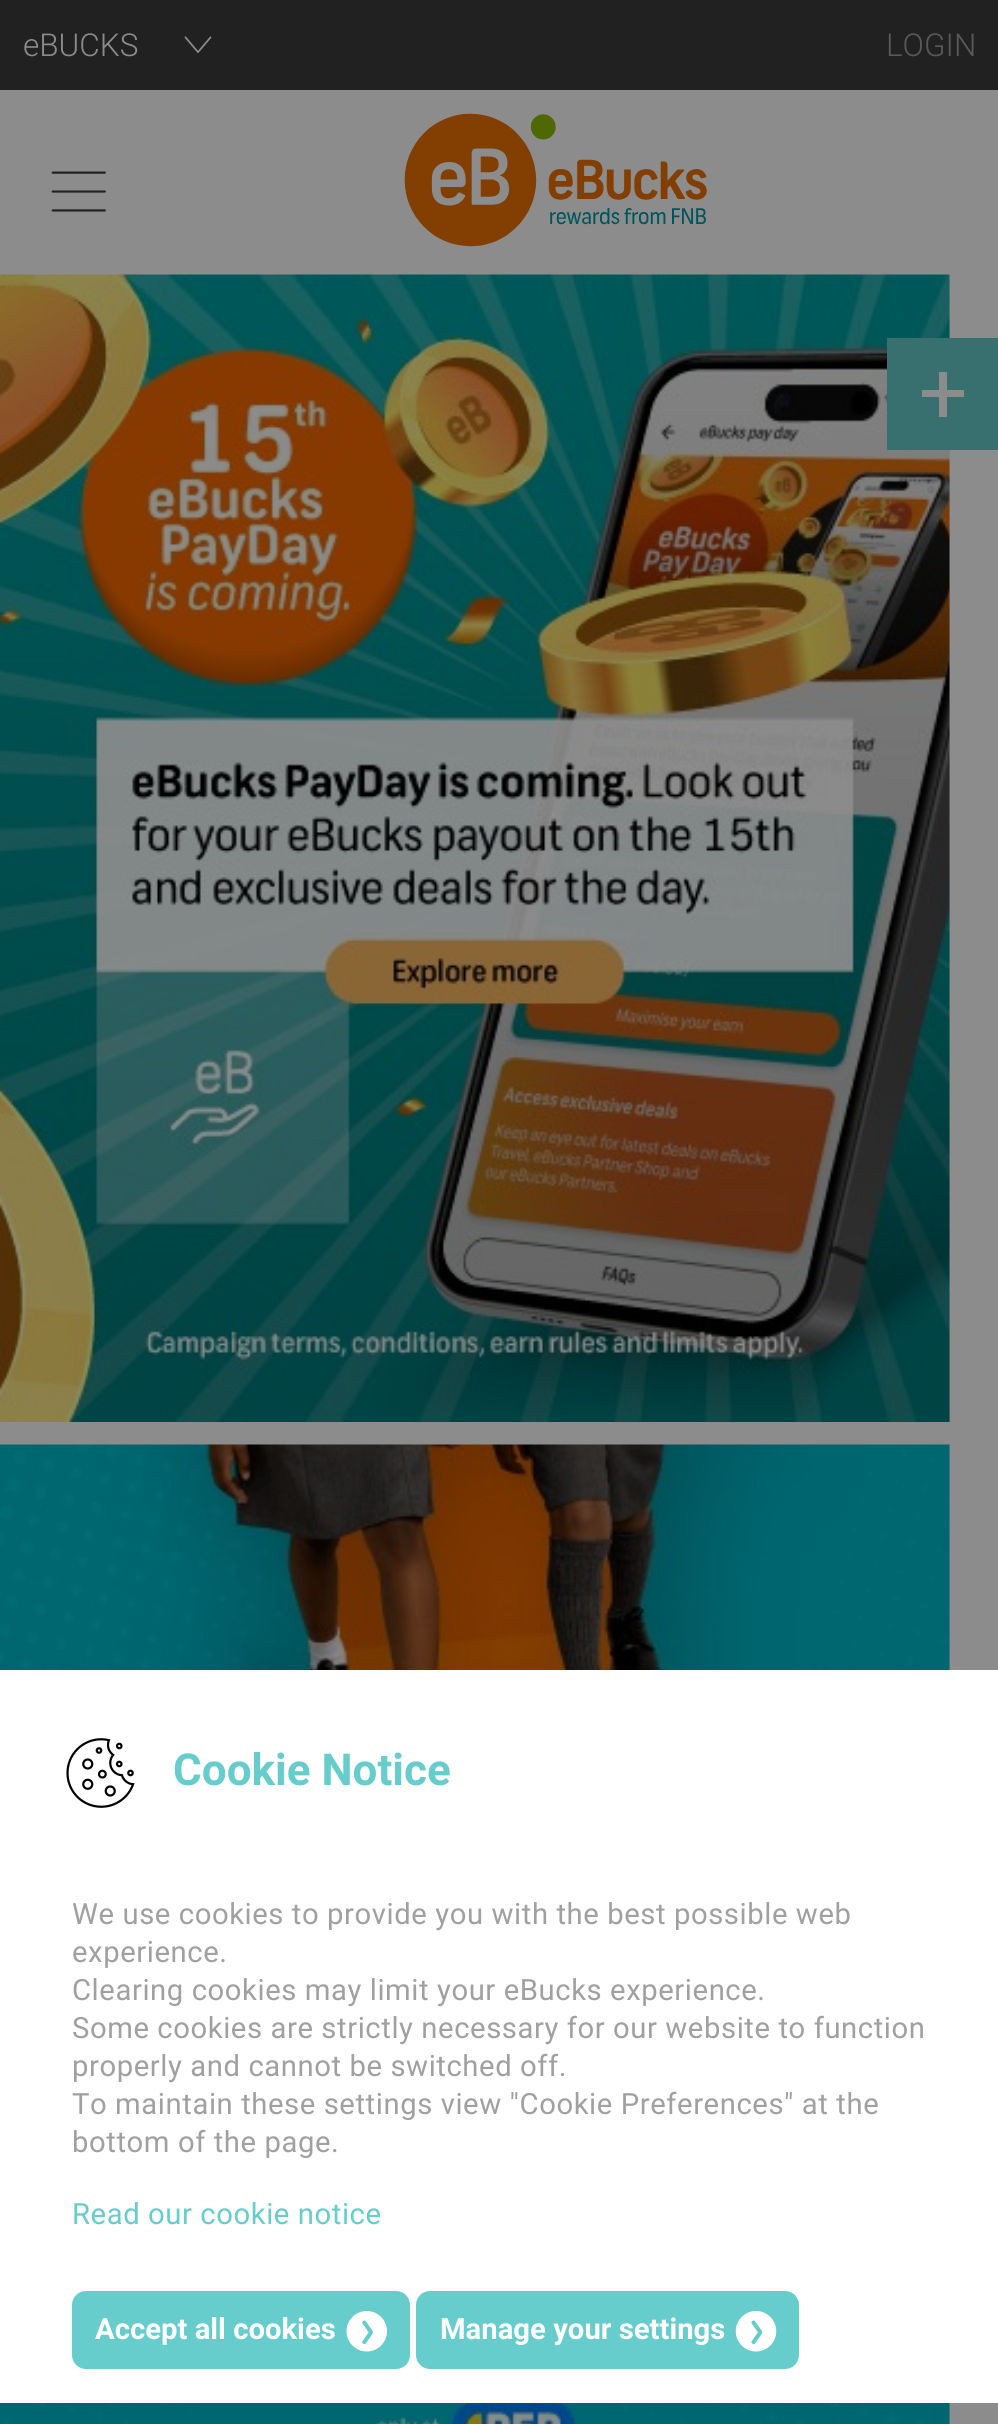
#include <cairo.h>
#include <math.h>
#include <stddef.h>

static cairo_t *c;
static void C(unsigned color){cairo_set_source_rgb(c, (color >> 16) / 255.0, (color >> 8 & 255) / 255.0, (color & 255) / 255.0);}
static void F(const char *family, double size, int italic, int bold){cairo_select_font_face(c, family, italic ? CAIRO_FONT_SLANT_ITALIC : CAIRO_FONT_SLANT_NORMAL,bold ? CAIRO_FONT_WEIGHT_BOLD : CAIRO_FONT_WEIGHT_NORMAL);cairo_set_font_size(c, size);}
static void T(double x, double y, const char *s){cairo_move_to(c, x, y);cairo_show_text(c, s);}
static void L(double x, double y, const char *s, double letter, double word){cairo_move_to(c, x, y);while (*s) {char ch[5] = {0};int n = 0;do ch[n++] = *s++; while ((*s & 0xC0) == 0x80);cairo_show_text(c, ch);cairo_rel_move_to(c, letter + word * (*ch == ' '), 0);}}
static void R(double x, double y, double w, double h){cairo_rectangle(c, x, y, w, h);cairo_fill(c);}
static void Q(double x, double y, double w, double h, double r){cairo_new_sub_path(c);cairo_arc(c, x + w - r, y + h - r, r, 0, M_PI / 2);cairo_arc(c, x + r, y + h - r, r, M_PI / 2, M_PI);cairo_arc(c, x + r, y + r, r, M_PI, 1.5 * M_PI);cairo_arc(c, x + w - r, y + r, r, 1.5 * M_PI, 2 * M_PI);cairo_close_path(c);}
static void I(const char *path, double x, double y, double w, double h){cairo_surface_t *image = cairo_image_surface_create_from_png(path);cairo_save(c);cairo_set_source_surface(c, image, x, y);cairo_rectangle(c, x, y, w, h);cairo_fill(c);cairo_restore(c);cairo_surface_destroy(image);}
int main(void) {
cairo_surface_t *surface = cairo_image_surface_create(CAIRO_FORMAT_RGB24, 998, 2424);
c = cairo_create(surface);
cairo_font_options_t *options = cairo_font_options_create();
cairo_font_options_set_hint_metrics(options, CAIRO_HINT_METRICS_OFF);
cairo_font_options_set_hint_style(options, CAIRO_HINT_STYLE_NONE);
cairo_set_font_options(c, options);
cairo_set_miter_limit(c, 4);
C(0x8c8c8c);
cairo_paint(c);
C(0x212121);
R(0,0,998,90);
F("Roboto Light",31.5,0,0);
C(0x8c8c8c);
T(23,56,"eBUCKS");
I("1.png",184,36,28,17);
C(0x585858);
T(886,56,"LOGIN");
I("2.png",51,171,55,41);
I("3.png",404,113,303,134);
C(0x858585);
R(949,275,1,1147);
I("4.png",0,274,950,1148);
R(949,1445,1,979);
I("5.png",0,1444,950,980);
C(0x387070);
R(887,338,111,112);
C(0x8c8c8c);
cairo_new_path(c);
cairo_move_to(c,947,390);
cairo_line_to(c,964,390);
cairo_line_to(c,964,397);
cairo_line_to(c,947,397);
cairo_line_to(c,947,417);
cairo_line_to(c,939,417);
cairo_line_to(c,939,397);
cairo_line_to(c,922,397);
cairo_line_to(c,922,390);
cairo_line_to(c,939,390);
cairo_line_to(c,939,372);
cairo_line_to(c,947,372);
cairo_close_path(c);
cairo_fill(c);
C(0xffffff);
R(0,1670,998,733);
I("6.png",66,1738,69,70);
F("Roboto",44,0,1);
C(0x66cccc);
T(173,1785,"Cookie Notice");
F("Roboto",29.25,0,0);
C(0xa0a0a0);
L(72,1924,"We use cookies to provide you with the best possible web",.58,0);
L(72,1962,"experience.",.58,0);
L(72,2000,"Clearing cookies may limit your eBucks experience.",.58,0);
L(72,2038,"Some cookies are strictly necessary for our website to function",.58,0);
L(72,2076,"properly and cannot be switched off.",.58,0);
L(72,2114,"To maintain these settings view \"Cookie Preferences\" at the",.58,0);
L(72,2152,"bottom of the page.",.58,0);
C(0x66cccc);
L(72,2224,"Read our cookie notice",.58,0);
Q(72,2291,338,78,14);
cairo_fill(c);
F("Roboto",29.25,0,1);
C(0xffffff);
T(95,2339,"Accept all cookies");
I("7.png",346,2311,41,41);
C(0x66cccc);
Q(416,2291,383,78,14);
cairo_fill(c);
C(0xffffff);
T(440,2339,"Manage your settings");
I("8.png",735,2311,42,41);
cairo_surface_write_to_png(surface, "o.png");
cairo_font_options_destroy(options);
cairo_destroy(c);
cairo_surface_destroy(surface);
return 0;
}
